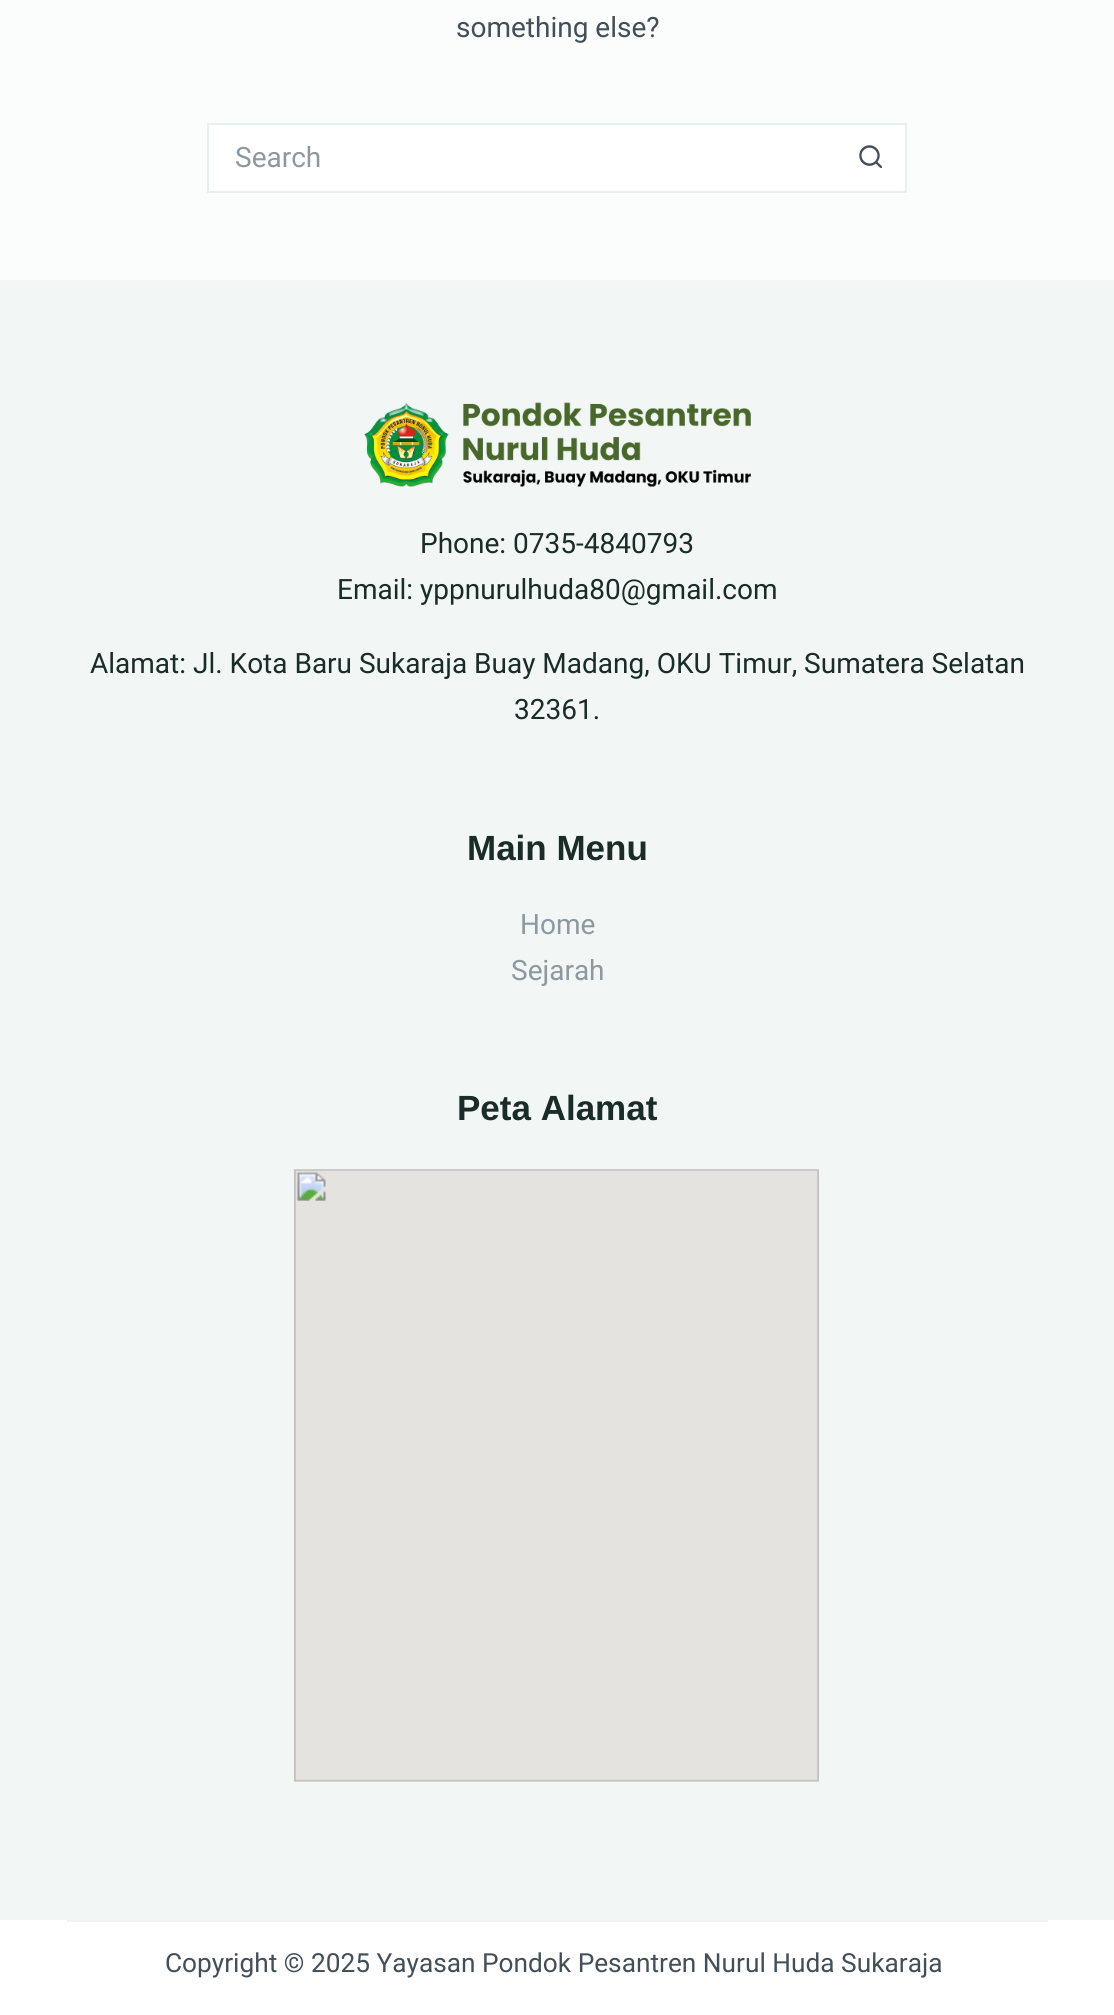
#include <cairo.h>
#include <math.h>
#include <stddef.h>

static cairo_t *c;
static void C(unsigned color){cairo_set_source_rgb(c, (color >> 16) / 255.0, (color >> 8 & 255) / 255.0, (color & 255) / 255.0);}
static void F(const char *family, double size, int italic, int bold){cairo_select_font_face(c, family, italic ? CAIRO_FONT_SLANT_ITALIC : CAIRO_FONT_SLANT_NORMAL,bold ? CAIRO_FONT_WEIGHT_BOLD : CAIRO_FONT_WEIGHT_NORMAL);cairo_set_font_size(c, size);}
static void T(double x, double y, const char *s){cairo_move_to(c, x, y);cairo_show_text(c, s);}
static void R(double x, double y, double w, double h){cairo_rectangle(c, x, y, w, h);cairo_fill(c);}
static void I(const char *path, double x, double y, double w, double h){cairo_surface_t *image = cairo_image_surface_create_from_png(path);cairo_save(c);cairo_set_source_surface(c, image, x, y);cairo_rectangle(c, x, y, w, h);cairo_fill(c);cairo_restore(c);cairo_surface_destroy(image);}
int main(void) {
cairo_surface_t *surface = cairo_image_surface_create(CAIRO_FORMAT_RGB24, 1114, 2015);
c = cairo_create(surface);
cairo_font_options_t *options = cairo_font_options_create();
cairo_font_options_set_hint_metrics(options, CAIRO_HINT_METRICS_OFF);
cairo_font_options_set_hint_style(options, CAIRO_HINT_STYLE_NONE);
cairo_set_font_options(c, options);
cairo_set_miter_limit(c, 4);
C(0xfbfcfc);
cairo_paint(c);
F("Roboto",28,0,0);
C(0x434f58);
T(456,37,"something else?");
C(0xffffff);
R(209,125,696,66);
C(0xe6f0ee);
R(207,123,700,2);
R(207,191,630,2);
R(207,123,2,70);
C(0x8e98a0);
T(235,167,"Search");
C(0xe6f0ee);
R(905,123,2,70);
R(837,191,70,2);
I("1.png",859,145,23,23);
C(0xffffff);
R(0,1920,1114,95);
C(0xf2f7f6);
R(0,280,1114,1640);
I("2.png",364,402,387,85);
C(0x192c27);
T(420,553,"Phone: 0735-4840793");
T(337,599,"Email: yppnurulhuda80@gmail.com");
T(90,673,"Alamat: Jl. Kota Baru Sukaraja Buay Madang, OKU Timur, Sumatera Selatan");
T(514,719,"32361.");
F("Liberation Sans",35,0,1);
T(467,860,"Main Menu");
F("Roboto",28,0,0);
C(0x8e98a0);
T(520,934,"Home");
T(511,980,"Sejarah");
F("Liberation Sans",35,0,1);
C(0x192c27);
T(457,1120,"Peta Alamat");
I("3.png",294,1169,525,613);
C(0xf2f2f2);
R(67,1920,981,2);
F("Roboto",26.25,0,0);
C(0x434f58);
T(165,1972,"Copyright © 2025 Yayasan Pondok Pesantren Nurul Huda Sukaraja");
cairo_surface_write_to_png(surface, "o.png");
cairo_font_options_destroy(options);
cairo_destroy(c);
cairo_surface_destroy(surface);
return 0;
}
